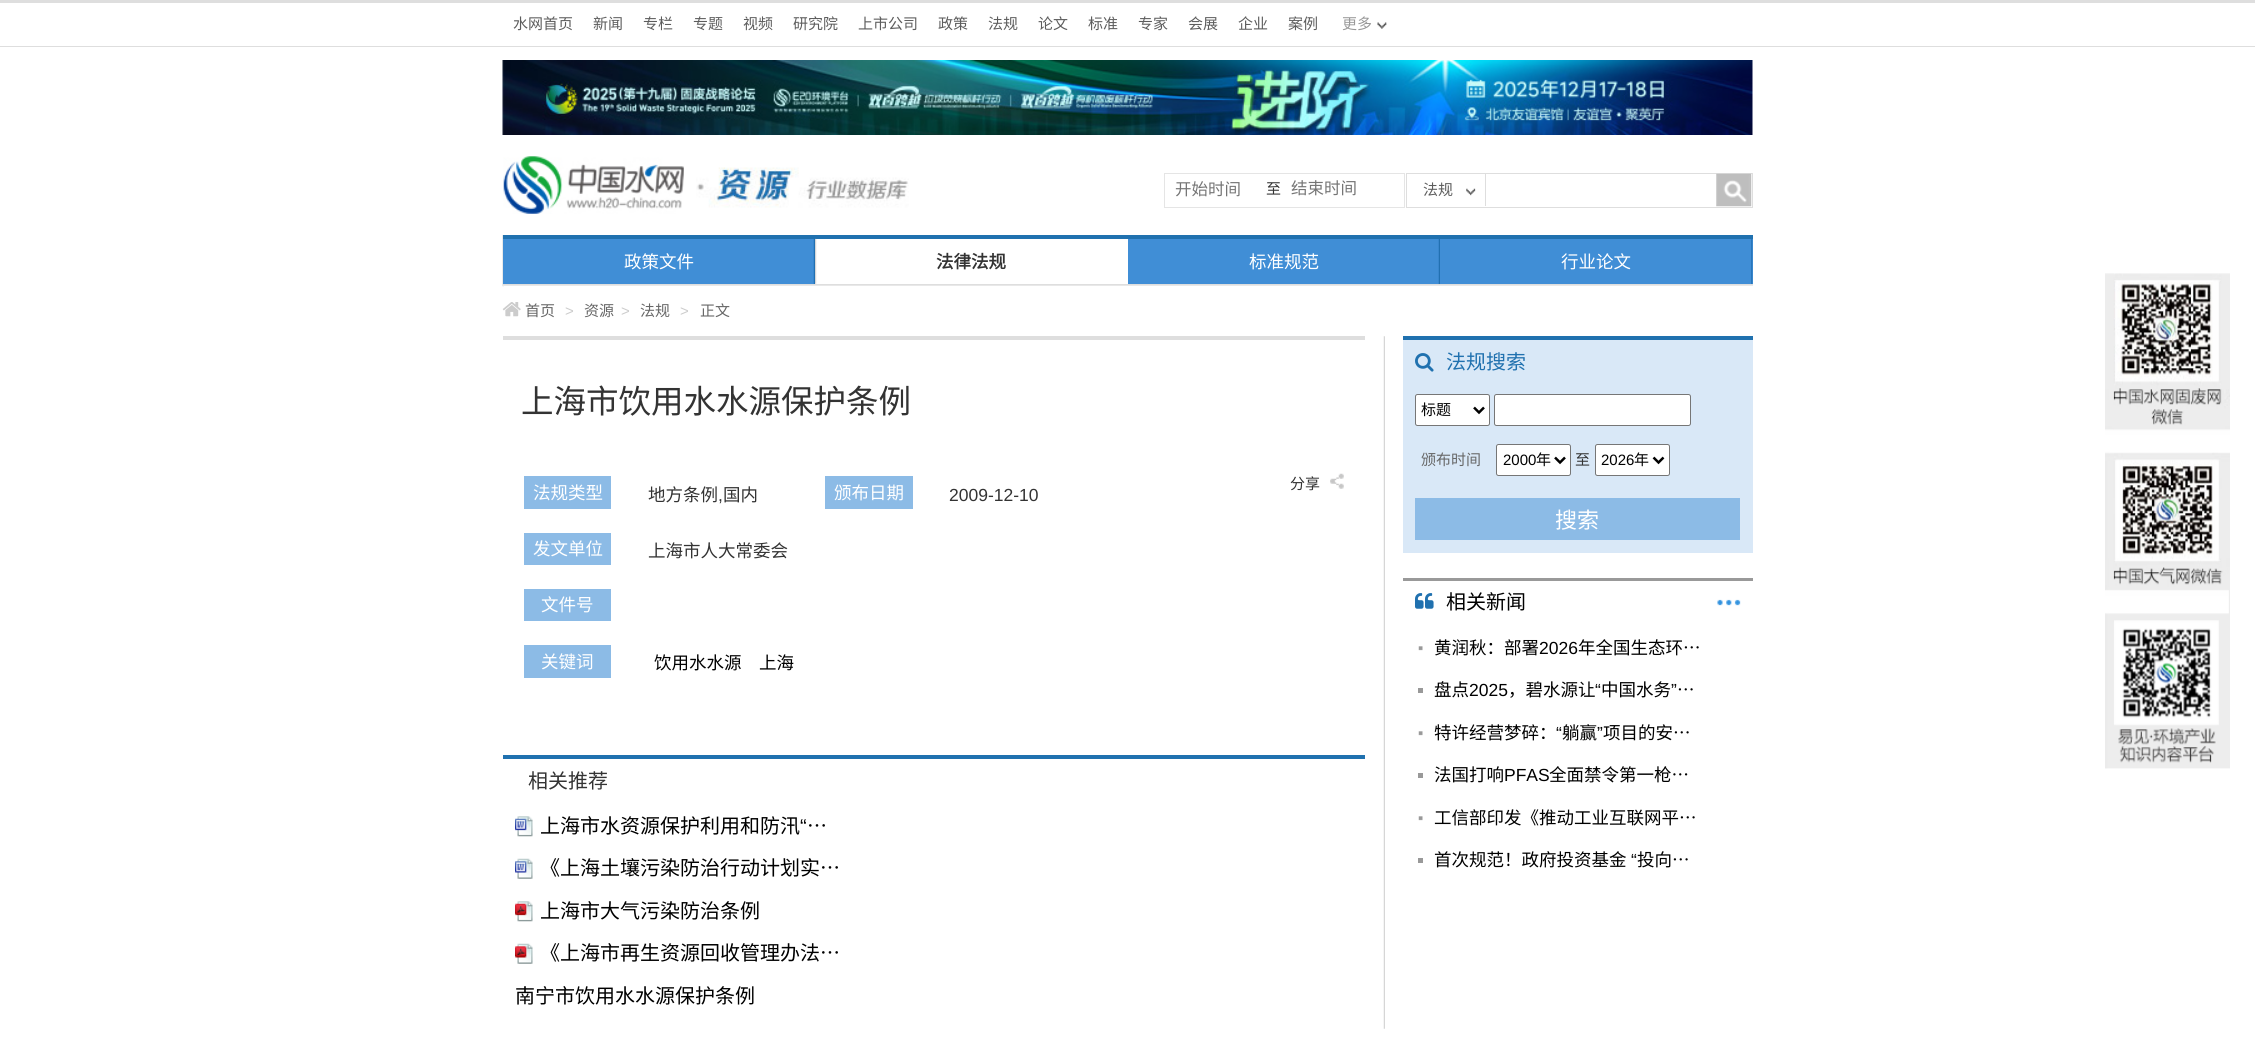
#include <cairo.h>
#include <math.h>
#include <stddef.h>

static cairo_t *c;
static void C(unsigned color){cairo_set_source_rgb(c, (color >> 16) / 255.0, (color >> 8 & 255) / 255.0, (color & 255) / 255.0);}
static void F(const char *family, double size, int italic, int bold){cairo_select_font_face(c, family, italic ? CAIRO_FONT_SLANT_ITALIC : CAIRO_FONT_SLANT_NORMAL,bold ? CAIRO_FONT_WEIGHT_BOLD : CAIRO_FONT_WEIGHT_NORMAL);cairo_set_font_size(c, size);}
static void T(double x, double y, const char *s){cairo_move_to(c, x, y);cairo_show_text(c, s);}
static void R(double x, double y, double w, double h){cairo_rectangle(c, x, y, w, h);cairo_fill(c);}
static void Q(double x, double y, double w, double h, double r){cairo_new_sub_path(c);cairo_arc(c, x + w - r, y + h - r, r, 0, M_PI / 2);cairo_arc(c, x + r, y + h - r, r, M_PI / 2, M_PI);cairo_arc(c, x + r, y + r, r, M_PI, 1.5 * M_PI);cairo_arc(c, x + w - r, y + r, r, 1.5 * M_PI, 2 * M_PI);cairo_close_path(c);}
static void I(const char *path, double x, double y, double w, double h){cairo_surface_t *image = cairo_image_surface_create_from_png(path);cairo_save(c);cairo_set_source_surface(c, image, x, y);cairo_rectangle(c, x, y, w, h);cairo_fill(c);cairo_restore(c);cairo_surface_destroy(image);}
int main(void) {
cairo_surface_t *surface = cairo_image_surface_create(CAIRO_FORMAT_RGB24, 2255, 1041);
c = cairo_create(surface);
cairo_font_options_t *options = cairo_font_options_create();
cairo_font_options_set_hint_metrics(options, CAIRO_HINT_METRICS_OFF);
cairo_font_options_set_hint_style(options, CAIRO_HINT_STYLE_NONE);
cairo_set_font_options(c, options);
cairo_set_miter_limit(c, 4);
C(0xffffff);
cairo_paint(c);
C(0xdedede);
R(0,0,2255,3);
R(0,46,2255,1);
F("Noto Sans CJK SC",15,0,0);
C(0x5c5c5c);
T(513,29,"水网首页");
T(593,29,"新闻");
T(643,29,"专栏");
T(693,29,"专题");
T(743,29,"视频");
T(793,29,"研究院");
T(858,29,"上市公司");
T(938,29,"政策");
T(988,29,"法规");
T(1038,29,"论文");
T(1088,29,"标准");
T(1138,29,"专家");
T(1188,29,"会展");
T(1238,29,"企业");
T(1288,29,"案例");
I("1.png",1377,22,10,7);
C(0x999999);
T(1342,29,"更多");
I("2.png",502,60,1251,75);
I("3.png",503,156,181,58);
I("4.png",696,167,213,41);
cairo_rectangle(c,1406.5,173.5,346,34);
C(0xdedede);
cairo_set_line_width(c,1);
cairo_stroke(c);
cairo_rectangle(c,1164.5,173.5,240,34);
C(0xe5e5e5);
cairo_stroke(c);
F("Noto Sans CJK SC",16.5,0,0);
C(0x757575);
T(1175,195,"开始时间");
F("Noto Sans CJK SC",15,0,0);
C(0x333333);
T(1266,194,"至");
F("Noto Sans CJK SC",16.5,0,0);
C(0x757575);
T(1291,194,"结束时间");
I("5.png",1466,188,10,8);
C(0xdedede);
R(1485,174,1,32);
F("Noto Sans CJK SC",15,0,0);
C(0x5c5c5c);
T(1423,195,"法规");
I("6.png",1716,173,36,34);
C(0x408ed6);
R(1128,239,625,45);
I("7.png",502,235,2,52);
C(0x2071af);
R(503,235,1250,4);
C(0xe8e8e8);
R(503,285,1250,1);
C(0x408ed6);
R(503,239,311,45);
I("8.png",813,239,2,45);
C(0xdedede);
R(503,284,1250,1);
F("Noto Sans CJK SC",17.5,0,0);
C(0xffffff);
T(624,268,"政策文件");
I("9.png",815,238,2,46);
F("Noto Sans CJK SC",17.5,0,1);
C(0x333333);
T(936,268,"法律法规");
I("8.png",1438,239,2,45);
F("Noto Sans CJK SC",17.5,0,0);
C(0xffffff);
T(1249,268,"标准规范");
I("10.png",1751,239,2,45);
T(1561,268,"行业论文");
I("11.png",502,302,19,15);
F("Noto Sans CJK SC",15,0,0);
C(0x666666);
T(525,316,"首页");
F("Liberation Sans",15,0,0);
C(0xcccccc);
T(565,316,">");
F("Noto Sans CJK SC",15,0,0);
C(0x666666);
T(584,316,"资源");
F("Liberation Sans",15,0,0);
C(0xcccccc);
T(621,316,">");
F("Noto Sans CJK SC",15,0,0);
C(0x666666);
T(640,316,"法规");
F("Liberation Sans",15,0,0);
C(0xcccccc);
T(680,316,">");
F("Noto Sans CJK SC",15,0,0);
C(0x666666);
T(700,316,"正文");
I("12.png",1383,336,2,693);
C(0xdedede);
R(503,336,862,4);
F("Noto Sans CJK SC",32.5,0,0);
C(0x333333);
T(521,413,"上海市饮用水水源保护条例");
C(0x8cbbe6);
R(524,476,87,33);
F("Noto Sans CJK SC",17.5,0,0);
C(0xffffff);
T(533,499,"法规类型");
C(0x333333);
T(648,501,"地方条例");
F("Liberation Sans",17.5,0,0);
T(718,501,",");
F("Noto Sans CJK SC",17.5,0,0);
T(723,501,"国内");
C(0x8cbbe6);
R(825,476,88,33);
C(0xffffff);
T(834,499,"颁布日期");
F("Liberation Sans",17.5,0,0);
C(0x333333);
T(949,501,"2009-12-10");
C(0x8cbbe6);
R(524,533,87,32);
F("Noto Sans CJK SC",17.5,0,0);
C(0xffffff);
T(533,555,"发文单位");
C(0x333333);
T(648,557,"上海市人大常委会");
C(0x8cbbe6);
R(524,589,87,32);
C(0xffffff);
T(541,611,"文件号");
C(0x8cbbe6);
R(524,645,87,33);
C(0xffffff);
T(541,668,"关键词");
C(0x000000);
T(654,669,"饮用水水源");
T(759,669,"上海");
F("Noto Sans CJK SC",15,0,0);
C(0x333333);
T(1290,489,"分享");
I("13.png",1330,473,14,16);
C(0x2071af);
R(503,755,862,4);
F("Noto Sans CJK SC",20,0,0);
C(0x333333);
T(528,788,"相关推荐");
I("14.png",515,816,18,21);
C(0x000000);
T(540,833,"上海市水资源保护利用和防汛");
F("Liberation Sans",20,0,0);
T(800,833,"“");
F("Noto Sans CJK SC",20,0,0);
T(807,833,"…");
I("15.png",515,858,18,21);
T(540,875,"《上海土壤污染防治行动计划实…");
I("16.png",515,901,18,21);
T(540,918,"上海市大气污染防治条例");
I("17.png",515,943,18,21);
T(540,960,"《上海市再生资源回收管理办法…");
T(515,1003,"南宁市饮用水水源保护条例");
C(0xd9e8f7);
R(1403,340,350,213);
C(0x2071af);
R(1403,336,350,4);
I("18.png",1415,353,19,19);
T(1446,369,"法规搜索");
C(0xffffff);
Q(1415.5,394.5,74,31,2);
cairo_fill_preserve(c);
C(0x767676);
cairo_stroke(c);
cairo_new_path(c);
cairo_move_to(c,1474,407.5);
cairo_line_to(c,1479,412.5);
cairo_line_to(c,1484,407.5);
C(0x000000);
cairo_set_line_width(c,2.5);
cairo_stroke(c);
F("Noto Sans CJK SC",15,0,0);
T(1421,415,"标题");
C(0xffffff);
Q(1494.5,394.5,196,31,2);
cairo_fill_preserve(c);
C(0x767676);
cairo_set_line_width(c,1);
cairo_stroke(c);
C(0x666666);
T(1421,465,"颁布时间");
C(0xffffff);
Q(1496.5,444.5,74,31,2);
cairo_fill_preserve(c);
C(0x767676);
cairo_stroke(c);
cairo_new_path(c);
cairo_move_to(c,1555,457.5);
cairo_line_to(c,1560,462.5);
cairo_line_to(c,1565,457.5);
C(0x000000);
cairo_set_line_width(c,2.5);
cairo_stroke(c);
F("Liberation Sans",15,0,0);
T(1503,465,"2000");
F("Noto Sans CJK SC",15,0,0);
T(1536,465,"年");
C(0x333333);
T(1575,465,"至");
C(0xffffff);
Q(1595.5,444.5,74,31,2);
cairo_fill_preserve(c);
C(0x767676);
cairo_set_line_width(c,1);
cairo_stroke(c);
cairo_new_path(c);
cairo_move_to(c,1653.5,457.5);
cairo_line_to(c,1658.5,462.5);
cairo_line_to(c,1663.5,457.5);
C(0x000000);
cairo_set_line_width(c,2.5);
cairo_stroke(c);
F("Liberation Sans",15,0,0);
T(1601,465,"2026");
F("Noto Sans CJK SC",15,0,0);
T(1634,465,"年");
C(0x8cbbe6);
R(1415,498,325,42);
F("Noto Sans CJK SC",22,0,0);
C(0xffffff);
T(1555,528,"搜索");
C(0x999999);
R(1403,578,350,3);
I("19.png",1415,593,19,16);
F("Noto Sans CJK SC",20,0,0);
C(0x000000);
T(1446,609,"相关新闻");
I("20.png",1717,599,24,7);
I("21.png",1418,646,5,5);
F("Noto Sans CJK SC",17.5,0,0);
T(1434,654,"黄润秋：部署");
F("Liberation Sans",17.5,0,0);
T(1539,654,"2026");
F("Noto Sans CJK SC",17.5,0,0);
T(1578,654,"年全国生态环…");
C(0x999999);
R(1418,688,5,5);
C(0x000000);
T(1434,696,"盘点");
F("Liberation Sans",17.5,0,0);
T(1469,696,"2025");
F("Noto Sans CJK SC",17.5,0,0);
T(1508,696,"，碧水源让");
F("Liberation Sans",17.5,0,0);
T(1595,696,"“");
F("Noto Sans CJK SC",17.5,0,0);
T(1601,696,"中国水务");
F("Liberation Sans",17.5,0,0);
T(1671,696,"”");
F("Noto Sans CJK SC",17.5,0,0);
T(1677,696,"…");
I("21.png",1418,731,5,5);
T(1434,739,"特许经营梦碎：");
F("Liberation Sans",17.5,0,0);
T(1556,739,"“");
F("Noto Sans CJK SC",17.5,0,0);
T(1562,739,"躺赢");
F("Liberation Sans",17.5,0,0);
T(1597,739,"”");
F("Noto Sans CJK SC",17.5,0,0);
T(1603,739,"项目的安…");
C(0x999999);
R(1418,773,5,5);
C(0x000000);
T(1434,781,"法国打响");
F("Liberation Sans",17.5,0,0);
T(1504,781,"PFAS");
F("Noto Sans CJK SC",17.5,0,0);
T(1549,781,"全面禁令第一枪…");
I("21.png",1418,816,5,5);
T(1434,824,"工信部印发《推动工业互联网平…");
C(0x999999);
R(1418,858,5,5);
C(0x000000);
T(1434,866,"首次规范！政府投资基金");
F("Liberation Sans",17.5,0,0);
T(1631,866,"“");
F("Noto Sans CJK SC",17.5,0,0);
T(1637,866,"投向…");
I("22.png",2105,273,125,496);
cairo_surface_write_to_png(surface, "o.png");
cairo_font_options_destroy(options);
cairo_destroy(c);
cairo_surface_destroy(surface);
return 0;
}
